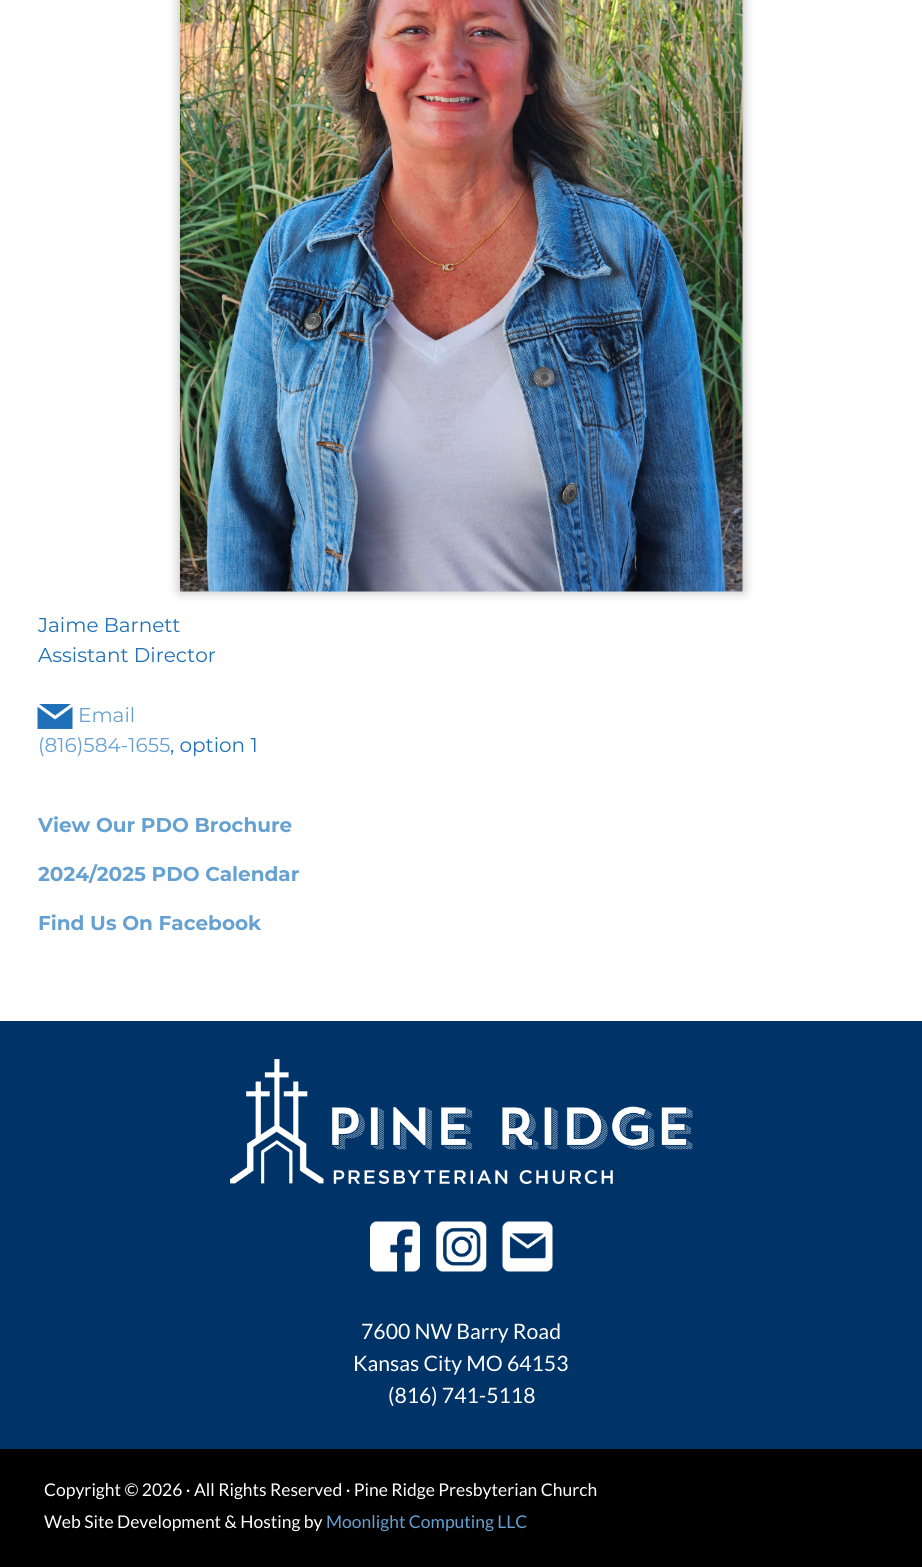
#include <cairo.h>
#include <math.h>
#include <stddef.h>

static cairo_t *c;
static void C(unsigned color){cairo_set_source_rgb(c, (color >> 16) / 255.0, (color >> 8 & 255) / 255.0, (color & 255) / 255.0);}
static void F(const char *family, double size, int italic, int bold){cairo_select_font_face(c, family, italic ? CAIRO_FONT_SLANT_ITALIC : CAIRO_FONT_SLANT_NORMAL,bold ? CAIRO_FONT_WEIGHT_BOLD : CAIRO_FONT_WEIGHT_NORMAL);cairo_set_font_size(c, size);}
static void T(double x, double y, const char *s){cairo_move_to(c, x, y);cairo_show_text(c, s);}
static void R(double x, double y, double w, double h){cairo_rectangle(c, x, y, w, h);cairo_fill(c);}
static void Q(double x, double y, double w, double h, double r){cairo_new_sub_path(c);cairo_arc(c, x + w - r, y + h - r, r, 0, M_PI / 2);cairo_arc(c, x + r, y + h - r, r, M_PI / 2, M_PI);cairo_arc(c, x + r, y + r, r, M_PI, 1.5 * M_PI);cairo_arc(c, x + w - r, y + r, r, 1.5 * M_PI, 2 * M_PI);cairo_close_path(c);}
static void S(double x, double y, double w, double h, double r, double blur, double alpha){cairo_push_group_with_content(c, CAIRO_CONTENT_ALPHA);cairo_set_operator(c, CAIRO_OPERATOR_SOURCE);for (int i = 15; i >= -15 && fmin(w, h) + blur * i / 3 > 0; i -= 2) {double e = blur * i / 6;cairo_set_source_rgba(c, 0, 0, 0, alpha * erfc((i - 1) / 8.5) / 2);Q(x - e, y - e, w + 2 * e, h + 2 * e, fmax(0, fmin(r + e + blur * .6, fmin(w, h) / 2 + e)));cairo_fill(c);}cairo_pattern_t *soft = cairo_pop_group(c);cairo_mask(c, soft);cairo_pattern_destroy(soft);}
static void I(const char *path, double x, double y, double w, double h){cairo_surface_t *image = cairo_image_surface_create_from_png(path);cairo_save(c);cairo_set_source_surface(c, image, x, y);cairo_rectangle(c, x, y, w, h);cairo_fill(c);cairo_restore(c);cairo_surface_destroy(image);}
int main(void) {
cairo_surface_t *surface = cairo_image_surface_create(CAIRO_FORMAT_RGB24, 922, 1567);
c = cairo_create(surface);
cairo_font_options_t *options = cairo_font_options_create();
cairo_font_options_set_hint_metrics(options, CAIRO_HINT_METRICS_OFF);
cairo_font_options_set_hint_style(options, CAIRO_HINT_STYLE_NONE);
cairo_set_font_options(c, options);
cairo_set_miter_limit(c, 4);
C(0xffffff);
cairo_paint(c);
C(0x000000);
S(180,-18,563,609,0,6,.3);
I("1.png",180,0,563,592);
F("Montserrat",20,0,0);
C(0x1f70b8);
T(38,632,"Jaime Barnett");
T(38,662,"Assistant Director");
I("2.png",37,704,36,25);
C(0x66a1d2);
T(78,722,"Email");
T(38,752,"(816)584-1655");
C(0x1f70b8);
T(170,752,", option 1");
F("Montserrat",20,0,1);
C(0x66a1d2);
T(38,832,"View Our PDO Brochure");
T(38,881,"2024/2025 PDO Calendar");
T(38,930,"Find Us On Facebook");
C(0x003468);
R(0,1021,922,428);
I("3.png",230,1059,463,125);
I("4.png",370,1221,50,51);
I("5.png",436,1221,51,51);
I("6.png",502,1221,51,51);
F("Lato",21.25,0,0);
C(0xffffff);
T(361,1339,"7600 NW Barry Road");
T(353,1371,"Kansas City MO 64153");
T(388,1403,"(816) 741-5118");
C(0x000000);
R(0,1449,922,118);
F("Lato",17.5,0,0);
C(0xffffff);
T(44,1496,"Copyright © 2026 · All Rights Reserved · Pine Ridge Presbyterian Church");
T(44,1528,"Web Site Development & Hosting by");
C(0x66a1d2);
T(326,1528,"Moonlight Computing LLC");
cairo_surface_write_to_png(surface, "o.png");
cairo_font_options_destroy(options);
cairo_destroy(c);
cairo_surface_destroy(surface);
return 0;
}
